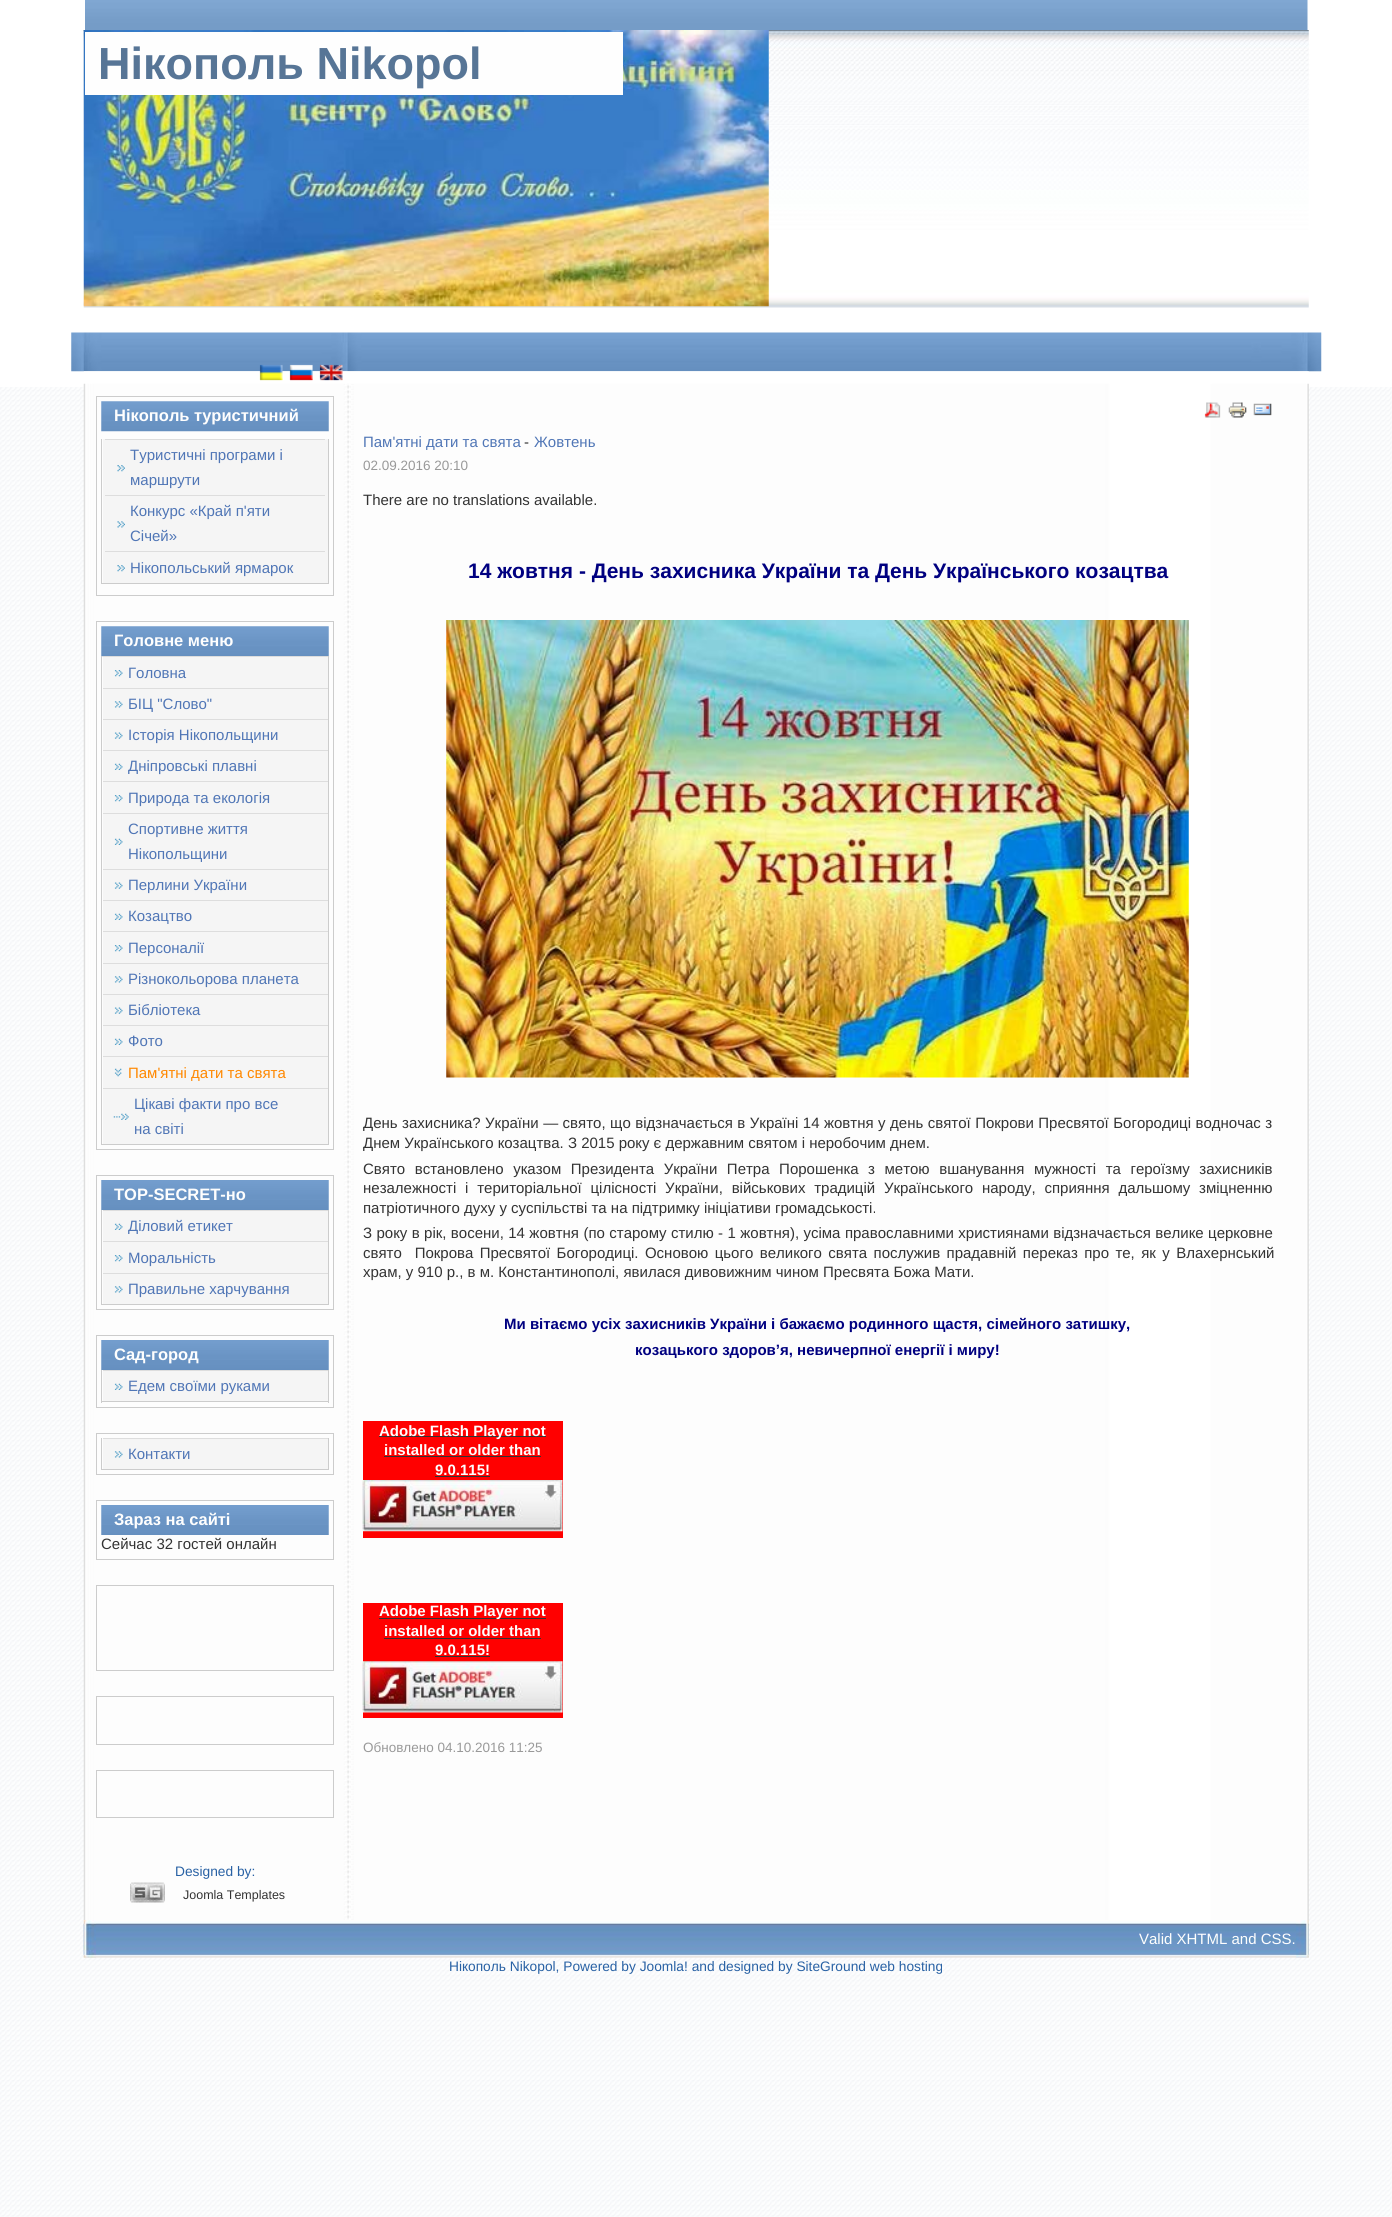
#include <cairo.h>
#include <math.h>
#include <stddef.h>

static cairo_t *c;
static void C(unsigned color){cairo_set_source_rgb(c, (color >> 16) / 255.0, (color >> 8 & 255) / 255.0, (color & 255) / 255.0);}
static void F(const char *family, double size, int italic, int bold){cairo_select_font_face(c, family, italic ? CAIRO_FONT_SLANT_ITALIC : CAIRO_FONT_SLANT_NORMAL,bold ? CAIRO_FONT_WEIGHT_BOLD : CAIRO_FONT_WEIGHT_NORMAL);cairo_set_font_size(c, size);}
static void T(double x, double y, const char *s){cairo_move_to(c, x, y);cairo_show_text(c, s);}
static void L(double x, double y, const char *s, double letter, double word){cairo_move_to(c, x, y);while (*s) {char ch[5] = {0};int n = 0;do ch[n++] = *s++; while ((*s & 0xC0) == 0x80);cairo_show_text(c, ch);cairo_rel_move_to(c, letter + word * (*ch == ' '), 0);}}
static void R(double x, double y, double w, double h){cairo_rectangle(c, x, y, w, h);cairo_fill(c);}
static void I(const char *path, double x, double y, double w, double h){cairo_surface_t *image = cairo_image_surface_create_from_png(path);cairo_save(c);cairo_set_source_surface(c, image, x, y);cairo_rectangle(c, x, y, w, h);cairo_fill(c);cairo_restore(c);cairo_surface_destroy(image);}
int main(void) {
cairo_surface_t *surface = cairo_image_surface_create(CAIRO_FORMAT_RGB24, 1392, 2217);
c = cairo_create(surface);
cairo_font_options_t *options = cairo_font_options_create();
cairo_font_options_set_hint_metrics(options, CAIRO_HINT_METRICS_OFF);
cairo_font_options_set_hint_style(options, CAIRO_HINT_STYLE_NONE);
cairo_set_font_options(c, options);
cairo_set_miter_limit(c, 4);
C(0xffffff);
cairo_paint(c);
I("1.png",0,387,1392,1830);
I("2.png",85,0,1223,30);
I("3.png",83,30,1226,278);
I("4.png",83,30,1,275);
I("5.png",83,30,686,277);
C(0xfefefe);
R(85,32,538,63);
F("Liberation Sans",45,0,1);
C(0x577596);
T(98,79,"Нікополь Nikopol");
I("6.png",71,332,1251,40);
I("10.png",83,371,1226,1);
I("7.png",259,364,24,17);
I("8.png",289,364,24,17);
I("9.png",319,364,24,17);
I("11.png",83,383,1226,1537);
cairo_rectangle(c,96.5,396.5,237,199);
C(0xcccccc);
cairo_set_line_width(c,1);
cairo_stroke(c);
I("12.png",101,401,228,31);
F("Liberation Sans",16.5,0,1);
C(0xfefefe);
T(114,421,"Нікополь туристичний");
C(0xcccccc);
R(328,439,1,145);
R(101,583,228,1);
R(101,439,1,145);
C(0xf5f5f5);
R(103,439,225,144);
I("13.png",117,465,8,7);
C(0xdddddd);
R(105,439,220,1);
F("Liberation Sans",15,0,0);
C(0x5076b6);
T(130,460,"Туристичні програми і");
T(130,485,"маршрути");
I("14.png",117,521,8,7);
C(0xdddddd);
R(105,495,220,1);
C(0x5076b6);
T(130,516,"Конкурс «Край п'яти");
T(130,541,"Січей»");
I("13.png",117,565,8,7);
C(0xdddddd);
R(105,551,220,1);
C(0x5076b6);
T(130,573,"Нікопольський ярмарок");
cairo_rectangle(c,96.5,621.5,237,528);
C(0xcccccc);
cairo_stroke(c);
I("15.png",101,626,228,31);
F("Liberation Sans",16.5,0,1);
C(0xfefefe);
T(114,646,"Головне меню");
C(0xcccccc);
R(328,656,1,489);
R(101,1144,228,1);
R(101,656,1,489);
C(0xf5f5f5);
R(103,657,225,31);
I("16.png",114,670,9,7);
C(0xdddddd);
R(103,656,225,1);
F("Liberation Sans",15,0,0);
C(0x5076b6);
T(128,678,"Головна");
C(0xf5f5f5);
R(103,689,225,30);
I("17.png",114,701,9,7);
C(0xdddddd);
R(103,688,225,1);
C(0x5076b6);
T(128,709,"БІЦ \"Слово\"");
C(0xf5f5f5);
R(103,720,225,30);
I("18.png",114,732,9,7);
C(0xdddddd);
R(103,719,225,1);
C(0x5076b6);
T(128,740,"Історія Нікопольщини");
C(0xf5f5f5);
R(103,751,225,30);
I("19.png",114,763,9,7);
C(0xdddddd);
R(103,750,225,1);
C(0x5076b6);
T(128,771,"Дніпровські плавні");
C(0xf5f5f5);
R(103,782,225,31);
I("16.png",114,795,9,7);
C(0xdddddd);
R(103,781,225,1);
C(0x5076b6);
T(128,803,"Природа та екологія");
C(0xf5f5f5);
R(103,814,225,55);
I("19.png",114,838,9,7);
C(0xdddddd);
R(103,813,225,1);
C(0x5076b6);
T(128,834,"Спортивне життя");
T(128,859,"Нікопольщини");
C(0xf5f5f5);
R(103,870,225,30);
I("18.png",114,882,9,7);
C(0xdddddd);
R(103,869,225,1);
C(0x5076b6);
T(128,890,"Перлини України");
C(0xf5f5f5);
R(103,901,225,30);
I("19.png",114,913,9,7);
C(0xdddddd);
R(103,900,225,1);
C(0x5076b6);
T(128,921,"Козацтво");
C(0xf5f5f5);
R(103,932,225,31);
I("16.png",114,945,9,7);
C(0xdddddd);
R(103,931,225,1);
C(0x5076b6);
T(128,953,"Персоналії");
C(0xf5f5f5);
R(103,964,225,30);
I("17.png",114,976,9,7);
C(0xdddddd);
R(103,963,225,1);
C(0x5076b6);
T(128,984,"Різнокольорова планета");
C(0xf5f5f5);
R(103,995,225,30);
I("18.png",114,1007,9,7);
C(0xdddddd);
R(103,994,225,1);
C(0x5076b6);
T(128,1015,"Бібліотека");
C(0xf5f5f5);
R(103,1026,225,30);
I("19.png",114,1038,9,7);
C(0xdddddd);
R(103,1025,225,1);
C(0x5076b6);
T(128,1046,"Фото");
C(0xf5f5f5);
R(103,1057,225,87);
I("20.png",114,1068,8,9);
C(0xdddddd);
R(103,1056,225,1);
C(0xff8800);
T(128,1078,"Пам'ятні дати та свята");
I("21.png",113,1113,16,7);
C(0xdddddd);
R(103,1088,225,1);
C(0x5076b6);
T(134,1109,"Цікаві факти про все");
T(134,1134,"на світі");
cairo_rectangle(c,96.5,1175.5,237,134);
C(0xcccccc);
cairo_stroke(c);
I("22.png",101,1180,228,30);
F("Liberation Sans",16.5,0,1);
C(0xfefefe);
T(114,1200,"TOP-SECRET-но");
C(0xcccccc);
R(328,1210,1,95);
R(101,1304,228,1);
R(101,1210,1,95);
C(0xf5f5f5);
R(103,1211,225,30);
I("19.png",114,1223,9,7);
C(0xdddddd);
R(103,1210,225,1);
F("Liberation Sans",15,0,0);
C(0x5076b6);
T(128,1231,"Діловий етикет");
C(0xf5f5f5);
R(103,1242,225,31);
I("16.png",114,1255,9,7);
C(0xdddddd);
R(103,1241,225,1);
C(0x5076b6);
T(128,1263,"Моральність");
C(0xf5f5f5);
R(103,1274,225,30);
I("17.png",114,1286,9,7);
C(0xdddddd);
R(103,1273,225,1);
C(0x5076b6);
T(128,1294,"Правильне харчування");
cairo_rectangle(c,96.5,1335.5,237,72);
C(0xcccccc);
cairo_stroke(c);
I("23.png",101,1340,228,30);
F("Liberation Sans",16.5,0,1);
C(0xfefefe);
T(114,1360,"Сад-город");
C(0xcccccc);
R(328,1370,1,33);
R(101,1401,228,1);
R(101,1370,1,33);
C(0xf5f5f5);
R(103,1371,225,30);
I("19.png",114,1383,9,7);
C(0xdddddd);
R(103,1370,225,1);
F("Liberation Sans",15,0,0);
C(0x5076b6);
T(128,1391,"Едем своїми руками");
cairo_rectangle(c,96.5,1433.5,237,41);
C(0xcccccc);
cairo_stroke(c);
R(328,1438,1,32);
R(101,1469,228,1);
R(101,1438,1,32);
C(0xf5f5f5);
R(103,1439,225,30);
I("17.png",114,1451,9,7);
C(0xdddddd);
R(103,1438,225,1);
C(0x5076b6);
T(128,1459,"Контакти");
cairo_rectangle(c,96.5,1500.5,237,59);
C(0xcccccc);
cairo_stroke(c);
I("24.png",101,1505,228,30);
F("Liberation Sans",16.5,0,1);
C(0xfefefe);
T(114,1525,"Зараз на сайті");
F("Liberation Sans",15,0,0);
C(0x333333);
T(101,1549,"Сейчас 32 гостей онлайн");
cairo_rectangle(c,96.5,1585.5,237,85);
C(0xcccccc);
cairo_stroke(c);
cairo_rectangle(c,96.5,1696.5,237,48);
cairo_stroke(c);
cairo_rectangle(c,96.5,1770.5,237,47);
cairo_stroke(c);
F("Liberation Sans",13.75,0,0);
C(0x2861a4);
T(175,1876,"Designed by:");
I("25.png",130,1882,35,21);
F("Liberation Sans",12.5,0,0);
C(0x333333);
T(183,1899,"Joomla Templates");
I("26.png",1204,402,17,16);
I("27.png",1228,402,19,16);
I("28.png",1253,403,19,13);
F("Liberation Sans",15,0,0);
C(0x5076b6);
T(363,447,"Пам'ятні дати та свята");
C(0x333333);
T(524,447,"-");
C(0x5076b6);
T(534,447,"Жовтень");
F("Liberation Sans",13.5,0,0);
C(0x999999);
T(363,470,"02.09.2016 20:10");
F("Liberation Sans",15,0,0);
C(0x333333);
T(363,505,"There are no translations available.");
F("Liberation Sans",21,0,1);
C(0x000080);
T(468,578,"14 жовтня - День захисника України та День Українського козацтва");
I("29.png",446,620,743,458);
F("Liberation Sans",15,0,0);
C(0x333333);
L(363,1128,"День захисника? України — свято, що відзначається в Україні 14 жовтня у день святої Покрови Пресвятої Богородиці водночас з",0,.3);
T(363,1148,"Днем Українського козацтва. З 2015 року є державним святом і неробочим днем.");
L(363,1174,"Свято встановлено указом Президента України Петра Порошенка з метою вшанування мужності та героїзму захисників",0,5.4);
L(363,1193,"незалежності і територіальної цілісності України, військових традицій Українського народу, сприяння дальшому зміцненню",0,4.6);
T(363,1213,"патріотичного духу у суспільстві та на підтримку ініціативи громадськості.");
L(363,1238,"З року в рік, восени, 14 жовтня (по старому стилю - 1 жовтня), усіма православними християнами відзначається велике церковне",0,.25);
L(363,1258,"свято  Покрова Пресвятої Богородиці. Основою цього великого свята послужив прадавній переказ про те, як у Влахернський",0,2.25);
T(363,1277,"храм, у 910 р., в м. Константинополі, явилася дивовижним чином Пресвята Божа Мати.");
F("Liberation Sans",15,0,1);
C(0x000080);
T(504,1329,"Ми вітаємо усіх захисників України і бажаємо родинного щастя, сімейного затишку,");
T(635,1355,"козацького здоров’я, невичерпної енергії і миру!");
C(0xff0000);
R(363,1421,200,117);
C(0x333333);
R(379,1436,167,1);
C(0xfefefe);
T(379,1436,"Adobe Flash Player not");
T(384,1455,"installed or older than");
C(0x333333);
R(384,1456,157,1);
C(0xfefefe);
T(435,1475,"9.0.115!");
C(0x333333);
R(435,1476,55,1);
I("30.png",362,1480,201,52);
C(0xff0000);
R(363,1603,200,115);
C(0x333333);
R(379,1618,167,1);
C(0xfefefe);
T(379,1616,"Adobe Flash Player not");
T(384,1636,"installed or older than");
C(0x333333);
R(384,1638,157,1);
C(0xfefefe);
T(435,1655,"9.0.115!");
C(0x333333);
R(435,1656,55,1);
I("31.png",362,1661,201,52);
F("Liberation Sans",13.5,0,0);
C(0x999999);
T(363,1752,"Обновлено 04.10.2016 11:25");
I("32.png",83,1920,1226,38);
I("33.png",83,1920,13,38);
I("34.png",1296,1920,13,38);
F("Liberation Sans",15,0,0);
C(0xfefefe);
T(1139,1944,"Valid XHTML and CSS.");
F("Liberation Sans",13.75,0,0);
C(0x2861a4);
T(449,1971,"Нікополь Nikopol, Powered by Joomla! and designed by SiteGround web hosting");
cairo_surface_write_to_png(surface, "o.png");
cairo_font_options_destroy(options);
cairo_destroy(c);
cairo_surface_destroy(surface);
return 0;
}
